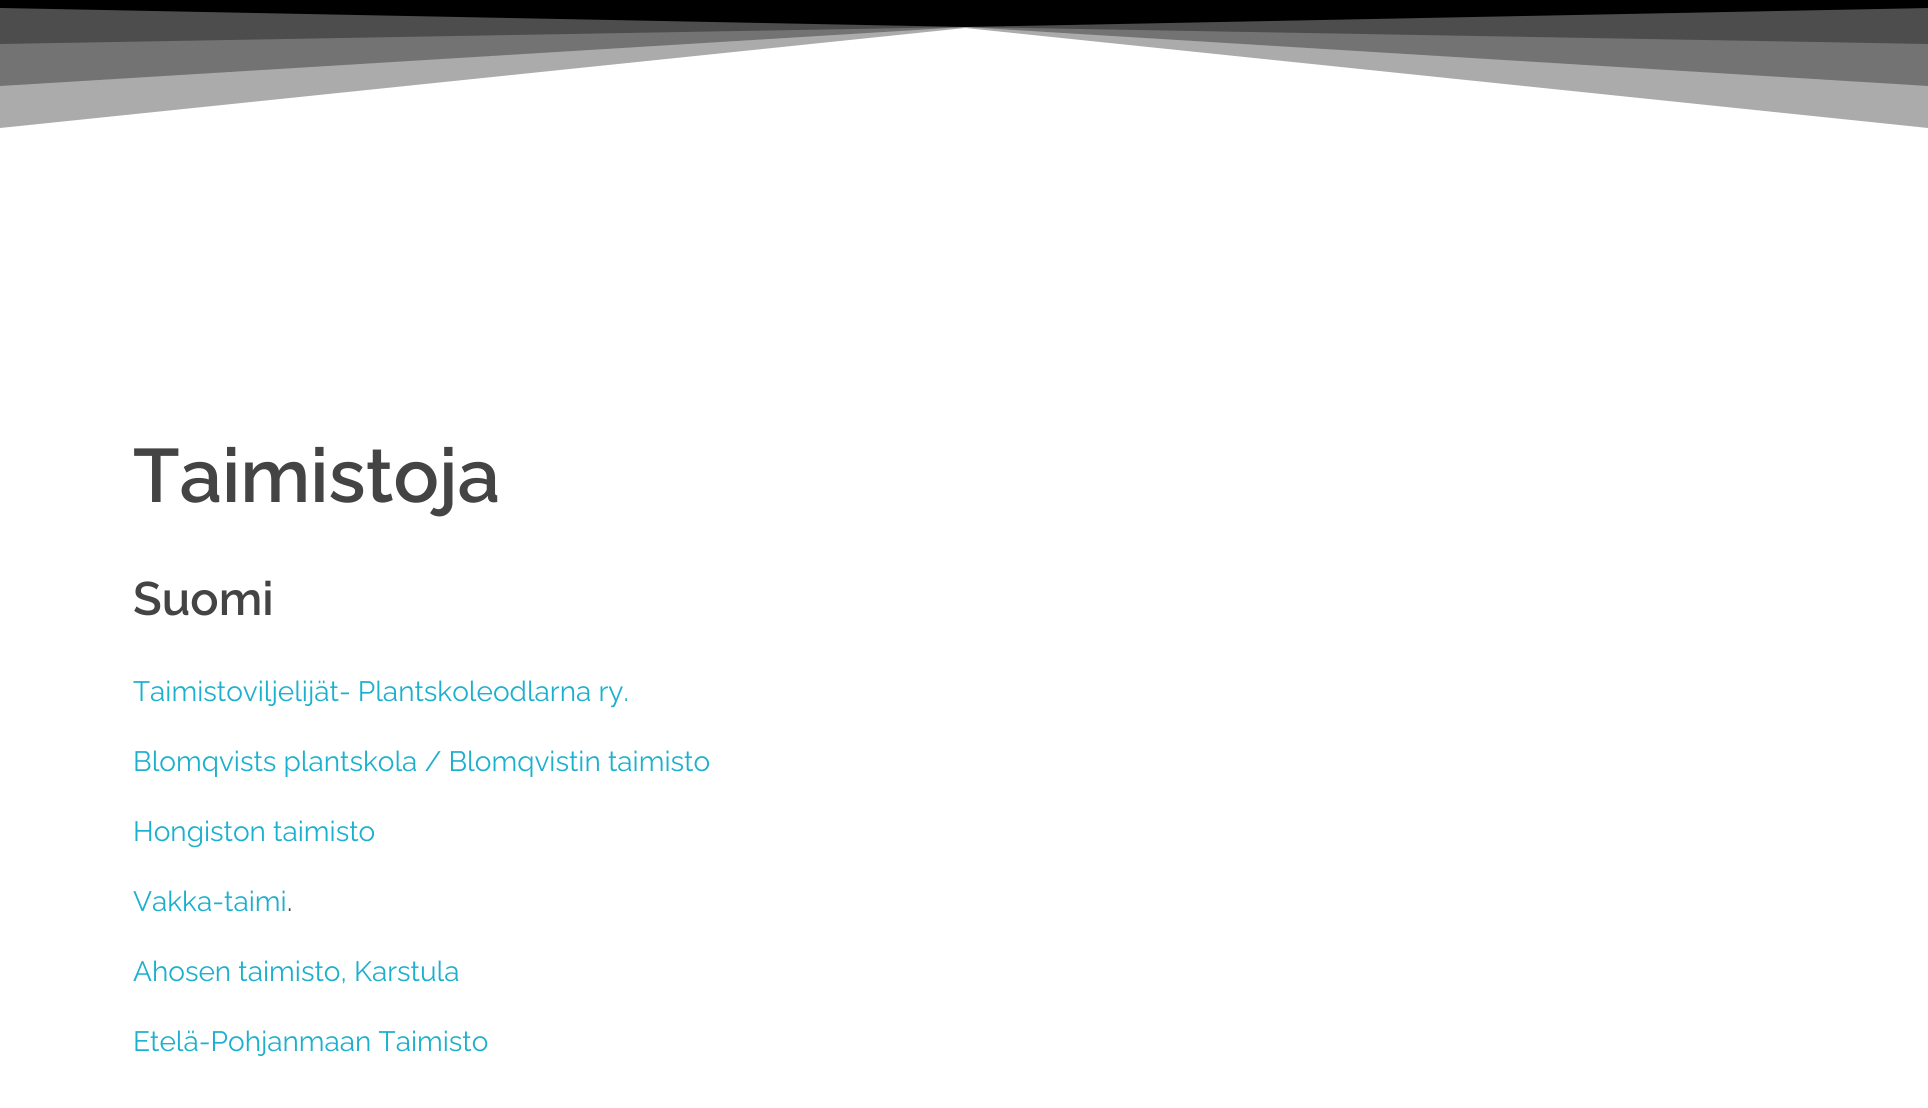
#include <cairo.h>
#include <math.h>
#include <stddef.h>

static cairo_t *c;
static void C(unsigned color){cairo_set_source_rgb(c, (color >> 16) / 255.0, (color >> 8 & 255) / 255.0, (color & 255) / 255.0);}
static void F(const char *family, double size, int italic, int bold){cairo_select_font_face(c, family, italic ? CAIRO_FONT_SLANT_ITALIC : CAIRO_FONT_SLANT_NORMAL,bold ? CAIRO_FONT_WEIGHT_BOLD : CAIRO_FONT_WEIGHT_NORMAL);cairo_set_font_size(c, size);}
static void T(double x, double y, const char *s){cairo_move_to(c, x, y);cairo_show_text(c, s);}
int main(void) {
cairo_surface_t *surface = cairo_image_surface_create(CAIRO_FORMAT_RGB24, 1928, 1108);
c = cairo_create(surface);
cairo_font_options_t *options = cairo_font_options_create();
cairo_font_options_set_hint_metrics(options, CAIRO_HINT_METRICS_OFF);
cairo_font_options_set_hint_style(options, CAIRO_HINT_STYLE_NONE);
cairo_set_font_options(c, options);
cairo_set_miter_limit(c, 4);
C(0xffffff);
cairo_paint(c);
C(0xababab);
cairo_new_path(c);
cairo_move_to(c,0,0);
cairo_line_to(c,0,128);
cairo_line_to(c,965,28);
cairo_line_to(c,1928,128);
cairo_line_to(c,1928,0);
cairo_close_path(c);
cairo_fill(c);
C(0x737373);
cairo_new_path(c);
cairo_move_to(c,0,0);
cairo_line_to(c,0,86);
cairo_line_to(c,965,27);
cairo_line_to(c,1928,86);
cairo_line_to(c,1928,0);
cairo_close_path(c);
cairo_fill(c);
C(0x4d4d4d);
cairo_new_path(c);
cairo_move_to(c,0,0);
cairo_line_to(c,0,44);
cairo_line_to(c,965,27);
cairo_line_to(c,1928,44);
cairo_line_to(c,1928,0);
cairo_close_path(c);
cairo_fill(c);
C(0x000000);
cairo_new_path(c);
cairo_move_to(c,0,0);
cairo_line_to(c,0,8);
cairo_line_to(c,965,27);
cairo_line_to(c,1928,8);
cairo_line_to(c,1928,0);
cairo_close_path(c);
cairo_fill(c);
F("Raleway SemiBold",75.5,0,0);
C(0x444444);
T(133,502,"Taimistoja");
F("Raleway SemiBold",47,0,0);
T(133,615,"Suomi");
F("Raleway",28,0,0);
C(0x1bb0ce);
T(133,701,"Taimistoviljelijät- Plantskoleodlarna ry.");
T(133,771,"Blomqvists plantskola / Blomqvistin taimisto");
T(133,841,"Hongiston taimisto");
T(133,911,"Vakka-taimi");
C(0x444444);
T(287,911,".");
C(0x1bb0ce);
T(133,981,"Ahosen taimisto, Karstula");
T(133,1051,"Etelä-Pohjanmaan Taimisto");
cairo_surface_write_to_png(surface, "o.png");
cairo_font_options_destroy(options);
cairo_destroy(c);
cairo_surface_destroy(surface);
return 0;
}
